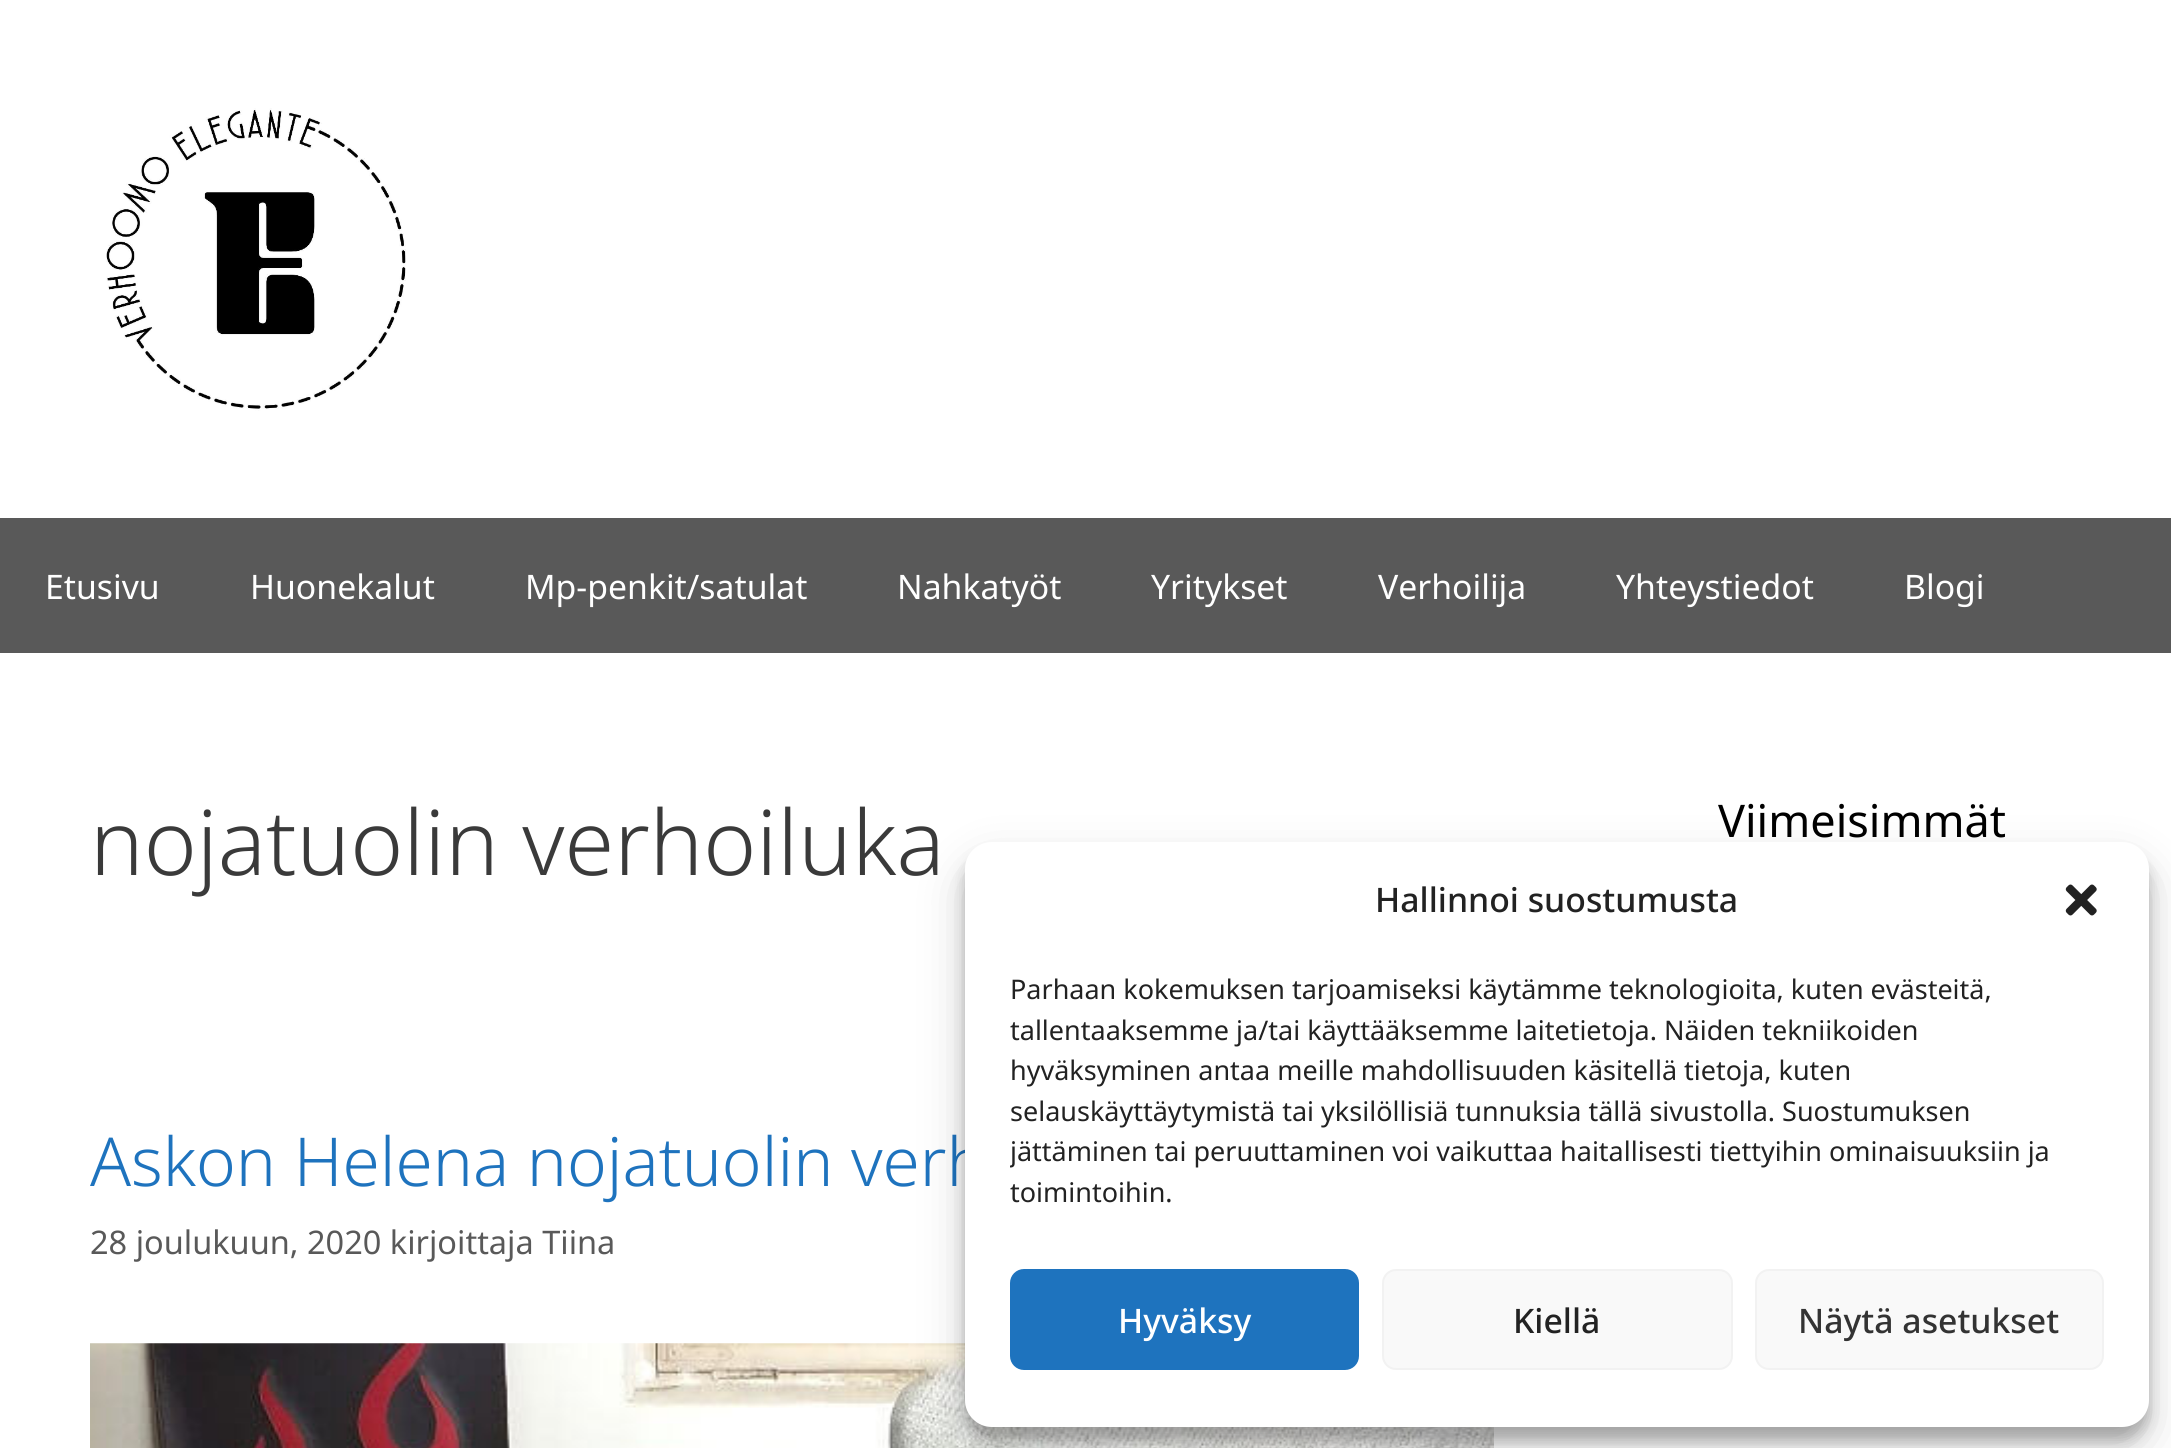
#include <cairo.h>
#include <math.h>
#include <stddef.h>

static cairo_t *c;
static void C(unsigned color){cairo_set_source_rgb(c, (color >> 16) / 255.0, (color >> 8 & 255) / 255.0, (color & 255) / 255.0);}
static void F(const char *family, double size, int italic, int bold){cairo_select_font_face(c, family, italic ? CAIRO_FONT_SLANT_ITALIC : CAIRO_FONT_SLANT_NORMAL,bold ? CAIRO_FONT_WEIGHT_BOLD : CAIRO_FONT_WEIGHT_NORMAL);cairo_set_font_size(c, size);}
static void T(double x, double y, const char *s){cairo_move_to(c, x, y);cairo_show_text(c, s);}
static void R(double x, double y, double w, double h){cairo_rectangle(c, x, y, w, h);cairo_fill(c);}
static void Q(double x, double y, double w, double h, double r){cairo_new_sub_path(c);cairo_arc(c, x + w - r, y + h - r, r, 0, M_PI / 2);cairo_arc(c, x + r, y + h - r, r, M_PI / 2, M_PI);cairo_arc(c, x + r, y + r, r, M_PI, 1.5 * M_PI);cairo_arc(c, x + w - r, y + r, r, 1.5 * M_PI, 2 * M_PI);cairo_close_path(c);}
static void S(double x, double y, double w, double h, double r, double blur, double alpha){cairo_push_group_with_content(c, CAIRO_CONTENT_ALPHA);cairo_set_operator(c, CAIRO_OPERATOR_SOURCE);for (int i = 15; i >= -15 && fmin(w, h) + blur * i / 3 > 0; i -= 2) {double e = blur * i / 6;cairo_set_source_rgba(c, 0, 0, 0, alpha * erfc((i - 1) / 8.5) / 2);Q(x - e, y - e, w + 2 * e, h + 2 * e, fmax(0, fmin(r + e + blur * .6, fmin(w, h) / 2 + e)));cairo_fill(c);}cairo_pattern_t *soft = cairo_pop_group(c);cairo_mask(c, soft);cairo_pattern_destroy(soft);}
static void I(const char *path, double x, double y, double w, double h){cairo_surface_t *image = cairo_image_surface_create_from_png(path);cairo_save(c);cairo_set_source_surface(c, image, x, y);cairo_rectangle(c, x, y, w, h);cairo_fill(c);cairo_restore(c);cairo_surface_destroy(image);}
int main(void) {
cairo_surface_t *surface = cairo_image_surface_create(CAIRO_FORMAT_RGB24, 2171, 1448);
c = cairo_create(surface);
cairo_font_options_t *options = cairo_font_options_create();
cairo_font_options_set_hint_metrics(options, CAIRO_HINT_METRICS_OFF);
cairo_font_options_set_hint_style(options, CAIRO_HINT_STYLE_NONE);
cairo_set_font_options(c, options);
cairo_set_miter_limit(c, 4);
C(0xffffff);
cairo_paint(c);
I("1.png",106,108,300,303);
C(0x595959);
R(0,518,2171,135);
F("Noto Sans",33.75,0,0);
C(0xffffff);
T(45,599,"Etusivu");
T(250,599,"Huonekalut");
T(525,599,"Mp-penkit/satulat");
T(897,599,"Nahkatyöt");
T(1151,599,"Yritykset");
T(1378,599,"Verhoilija");
T(1616,599,"Yhteystiedot");
T(1904,599,"Blogi");
F("Noto Sans Light",90,0,0);
C(0x3a3a3a);
T(90,875,"nojatuolin verhoiluka");
F("Noto Sans Light",67.5,0,0);
C(0x1e73be);
T(90,1186,"Askon Helena nojatuolin verh");
F("Noto Sans",32.5,0,0);
C(0x595959);
T(90,1254,"28 joulukuun, 2020 kirjoittaja Tiina");
I("2.png",90,1343,1404,105);
F("Noto Sans",45,0,0);
C(0x000000);
T(1718,837,"Viimeisimmät");
C(0x000000);
S(965,855,1184,585,27,7,.23);
S(965,864,1184,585,27,22.5,.19);
C(0xffffff);
Q(965,842,1184,585,27);
cairo_fill(c);
F("Noto Sans Medium",33.75,0,0);
C(0x222222);
T(1375,912,"Hallinnoi suostumusta");
I("3.png",2065,884,32,32);
F("Noto Sans",27,0,0);
T(1010,999,"Parhaan kokemuksen tarjoamiseksi käytämme teknologioita, kuten evästeitä,");
T(1010,1040,"tallentaaksemme ja/tai käyttääksemme laitetietoja. Näiden tekniikoiden");
T(1010,1080,"hyväksyminen antaa meille mahdollisuuden käsitellä tietoja, kuten");
T(1010,1121,"selauskäyttäytymistä tai yksilöllisiä tunnuksia tällä sivustolla. Suostumuksen");
cairo_save(c);
cairo_rectangle(c,1010,970,1094,254);
cairo_clip(c);
T(1010,1161,"jättäminen tai peruuttaminen voi vaikuttaa haitallisesti tiettyihin ominaisuuksiin ja");
cairo_restore(c);
T(1010,1202,"toimintoihin.");
C(0x1e73be);
Q(1011,1270,347,99,13);
cairo_fill_preserve(c);
cairo_stroke(c);
F("Noto Sans Medium",33.75,0,0);
C(0xffffff);
T(1118,1333,"Hyväksy");
C(0xf9f9f9);
Q(1383,1270,349,99,13);
cairo_fill_preserve(c);
C(0xf2f2f2);
cairo_stroke(c);
C(0x222222);
T(1513,1333,"Kiellä");
C(0xf9f9f9);
Q(1756,1270,347,99,13);
cairo_fill_preserve(c);
C(0xf2f2f2);
cairo_stroke(c);
C(0x333333);
T(1798,1333,"Näytä asetukset");
cairo_surface_write_to_png(surface, "o.png");
cairo_font_options_destroy(options);
cairo_destroy(c);
cairo_surface_destroy(surface);
return 0;
}
